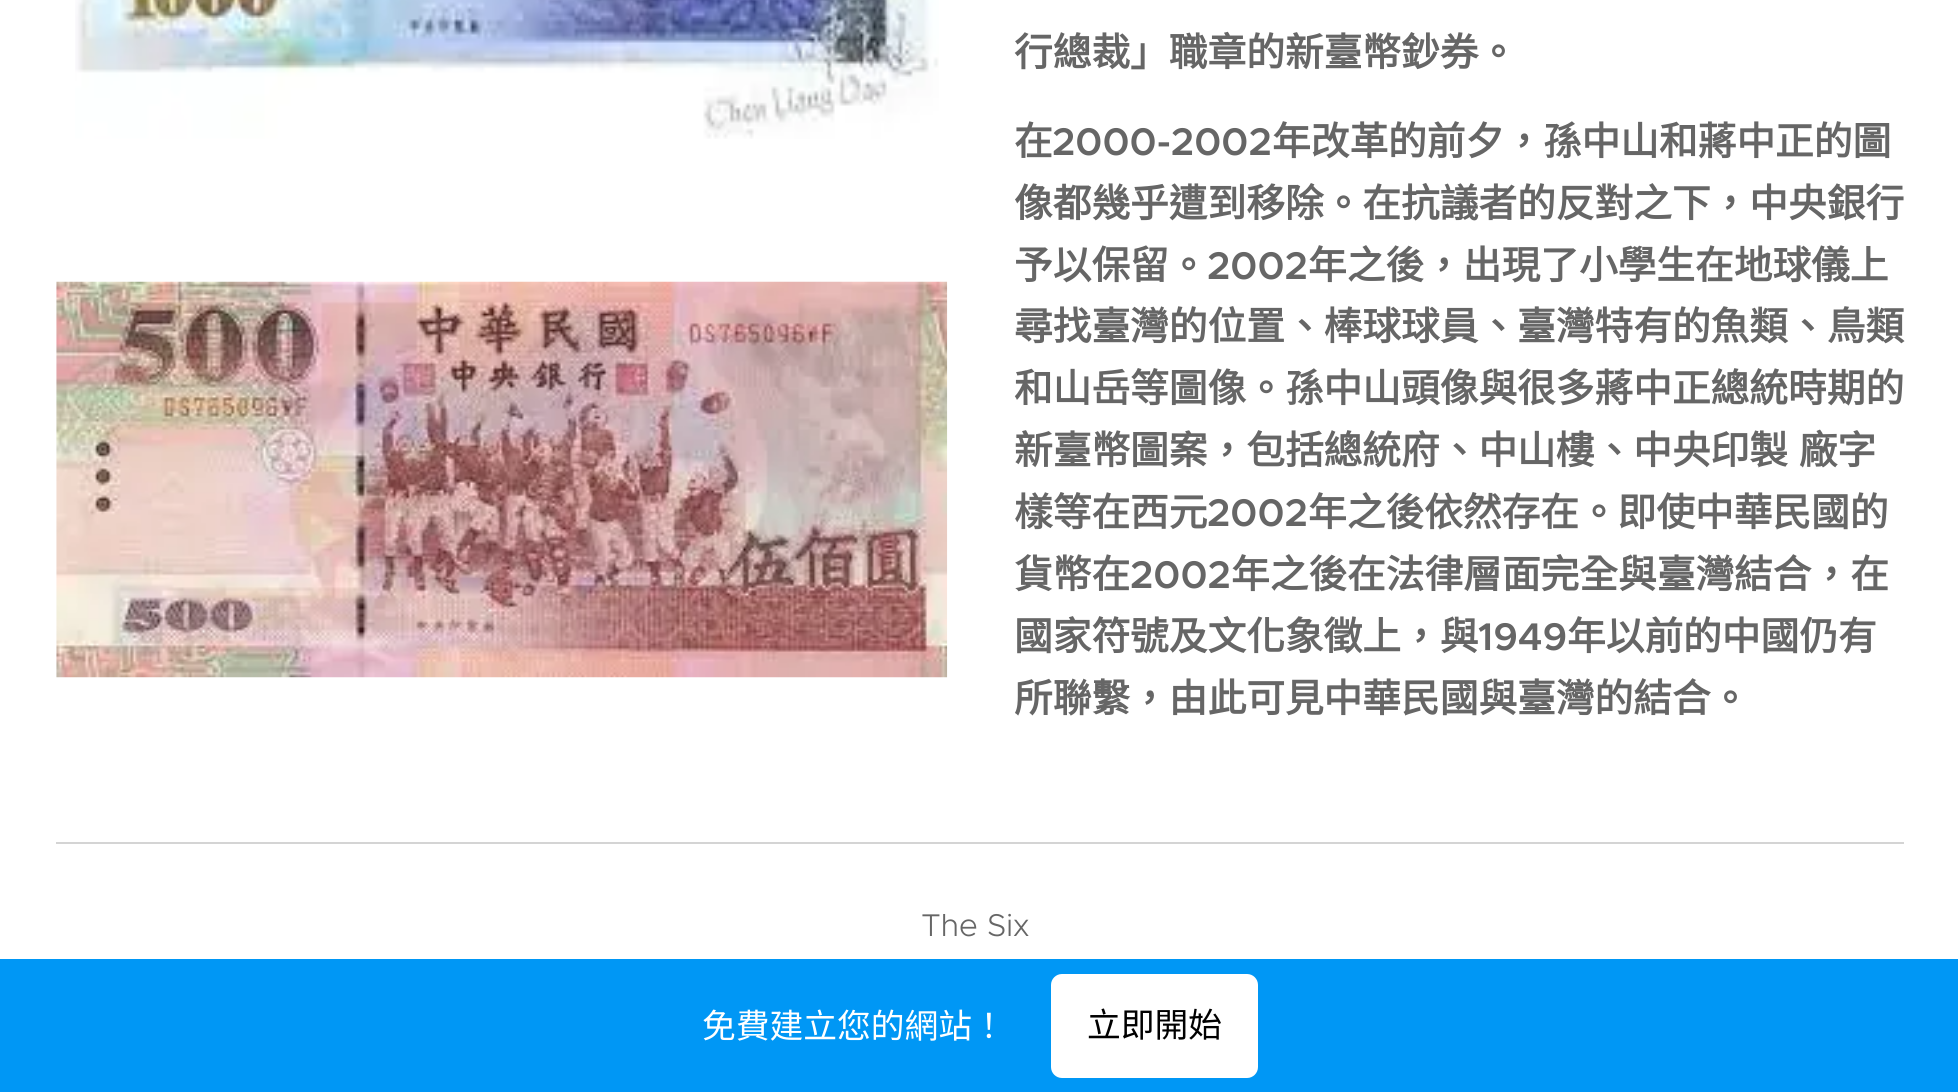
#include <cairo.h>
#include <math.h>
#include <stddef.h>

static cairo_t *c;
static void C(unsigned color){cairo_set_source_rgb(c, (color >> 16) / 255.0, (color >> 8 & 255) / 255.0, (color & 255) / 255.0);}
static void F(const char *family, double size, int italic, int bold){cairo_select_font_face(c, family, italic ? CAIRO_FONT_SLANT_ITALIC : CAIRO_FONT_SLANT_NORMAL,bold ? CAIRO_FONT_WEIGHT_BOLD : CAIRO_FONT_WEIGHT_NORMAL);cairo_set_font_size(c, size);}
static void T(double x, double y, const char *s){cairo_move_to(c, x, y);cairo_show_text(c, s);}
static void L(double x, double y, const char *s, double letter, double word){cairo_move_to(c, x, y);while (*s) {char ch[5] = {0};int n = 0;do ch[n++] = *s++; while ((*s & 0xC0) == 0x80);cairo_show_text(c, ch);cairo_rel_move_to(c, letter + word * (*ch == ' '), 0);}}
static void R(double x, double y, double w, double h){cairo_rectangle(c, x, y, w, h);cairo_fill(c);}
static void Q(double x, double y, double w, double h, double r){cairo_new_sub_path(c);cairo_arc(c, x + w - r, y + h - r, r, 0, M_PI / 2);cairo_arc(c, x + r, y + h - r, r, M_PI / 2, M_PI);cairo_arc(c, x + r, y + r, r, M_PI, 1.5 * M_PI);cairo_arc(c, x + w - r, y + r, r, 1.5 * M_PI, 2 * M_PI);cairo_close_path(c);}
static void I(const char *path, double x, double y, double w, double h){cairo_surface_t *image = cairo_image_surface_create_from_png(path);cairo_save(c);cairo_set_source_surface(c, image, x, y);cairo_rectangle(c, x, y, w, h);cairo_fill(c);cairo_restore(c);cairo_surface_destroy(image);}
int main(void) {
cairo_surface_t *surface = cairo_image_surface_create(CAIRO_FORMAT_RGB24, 1958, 1092);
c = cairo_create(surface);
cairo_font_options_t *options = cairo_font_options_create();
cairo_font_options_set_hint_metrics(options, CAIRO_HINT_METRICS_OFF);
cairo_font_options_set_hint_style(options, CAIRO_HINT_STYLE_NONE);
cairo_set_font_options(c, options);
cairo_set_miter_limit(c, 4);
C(0xffffff);
cairo_paint(c);
I("1.png",75,0,864,139);
I("2.png",56,281,892,397);
F("Noto Sans CJK TC",38.7,0,1);
C(0x666666);
T(1014,66,"行總裁」職章的新臺幣鈔券。");
T(1014,155,"在");
F("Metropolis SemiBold",38.7,0,0);
T(1052,155,"2000-2002");
F("Noto Sans CJK TC",38.7,0,1);
T(1272,155,"年改革的前夕，孫中山和蔣中正的圖");
T(1014,217,"像都幾乎遭到移除。在抗議者的反對之下，中央銀行");
T(1014,279,"予以保留。");
F("Metropolis SemiBold",38.7,0,0);
T(1207,279,"2002");
F("Noto Sans CJK TC",38.7,0,1);
T(1308,279,"年之後，出現了小學生在地球儀上");
T(1014,340,"尋找臺灣的位置、棒球球員、臺灣特有的魚類、鳥類");
T(1014,402,"和山岳等圖像。孫中山頭像與很多蔣中正總統時期的");
L(1014,464,"新臺幣圖案，包括總統府、中山樓、中央印製 廠字",0,2);
T(1014,526,"樣等在西元");
F("Metropolis SemiBold",38.7,0,0);
T(1207,526,"2002");
F("Noto Sans CJK TC",38.7,0,1);
T(1308,526,"年之後依然存在。即使中華民國的");
T(1014,588,"貨幣在");
F("Metropolis SemiBold",38.7,0,0);
T(1130,588,"2002");
F("Noto Sans CJK TC",38.7,0,1);
T(1231,588,"年之後在法律層面完全與臺灣結合，在");
T(1014,650,"國家符號及文化象徵上，與");
F("Metropolis SemiBold",38.7,0,0);
T(1478,650,"1949");
F("Noto Sans CJK TC",38.7,0,1);
T(1567,650,"年以前的中國仍有");
T(1014,712,"所聯繫，由此可見中華民國與臺灣的結合。");
C(0xd4d4d4);
R(56,842,1848,2);
F("Metropolis Light",31.5,0,0);
C(0x666666);
T(921,936,"The Six");
C(0x0097f5);
R(0,959,1958,133);
F("Noto Sans CJK TC",33.75,0,0);
C(0xffffff);
T(702,1038,"免費建立您的網站！");
Q(1051,974,207,104,11);
cairo_fill(c);
C(0x000000);
T(1087,1037,"立即開始");
cairo_surface_write_to_png(surface, "o.png");
cairo_font_options_destroy(options);
cairo_destroy(c);
cairo_surface_destroy(surface);
return 0;
}
